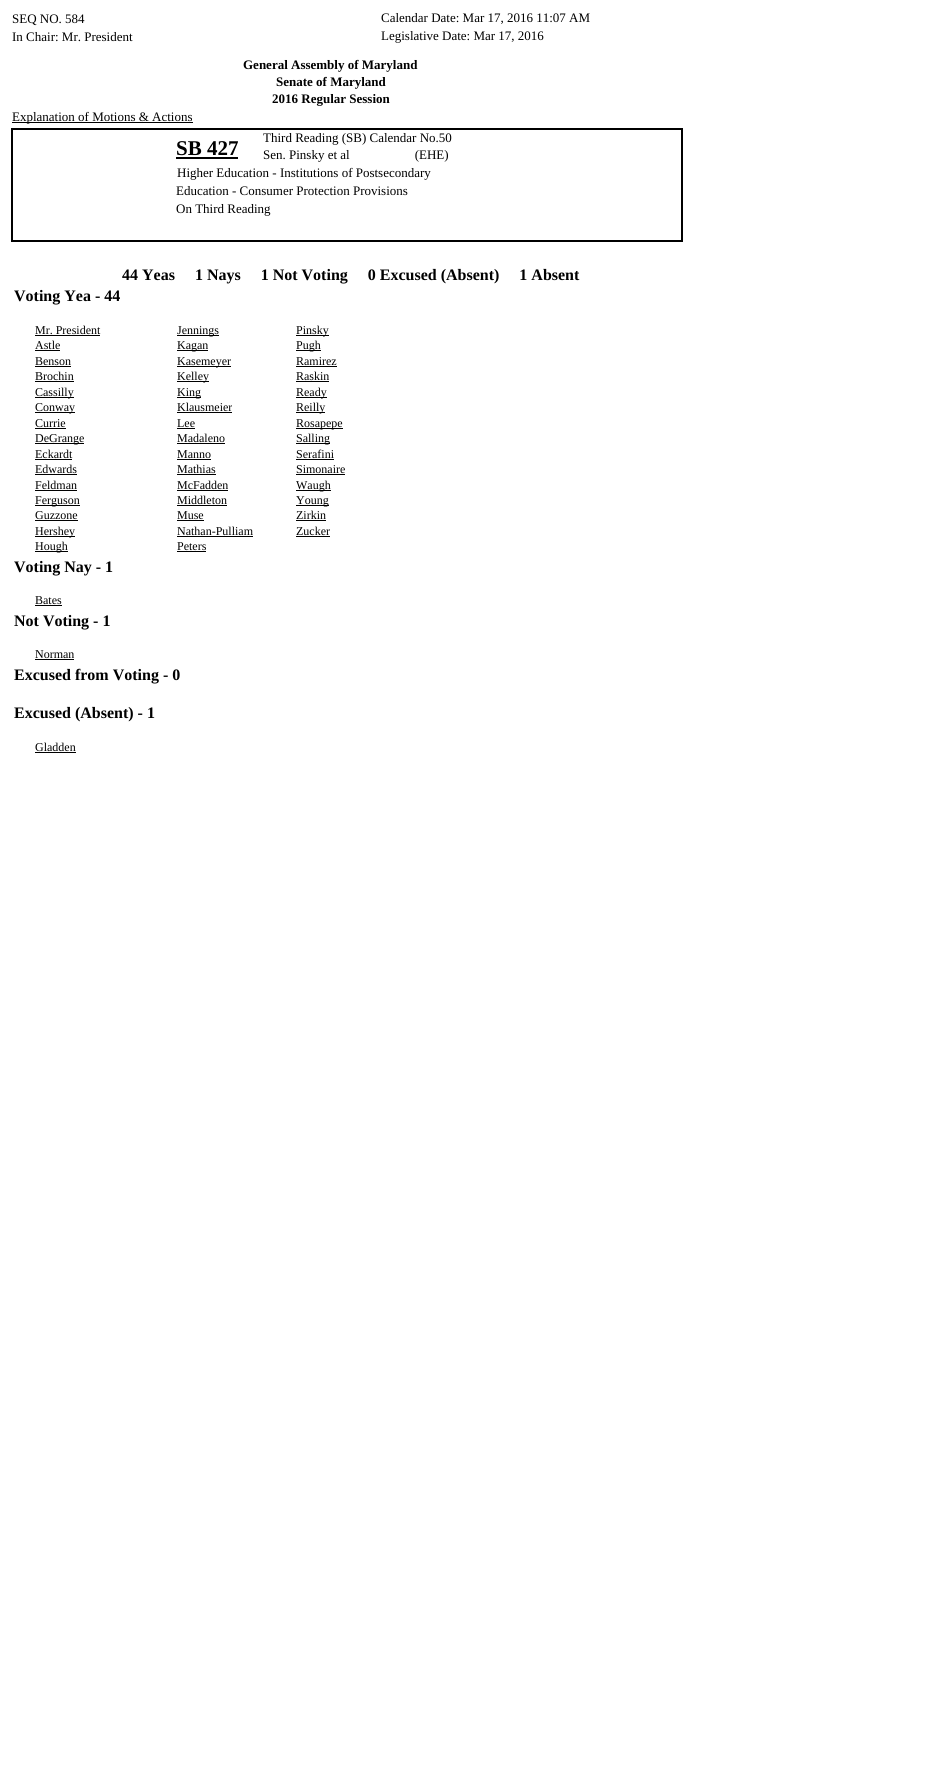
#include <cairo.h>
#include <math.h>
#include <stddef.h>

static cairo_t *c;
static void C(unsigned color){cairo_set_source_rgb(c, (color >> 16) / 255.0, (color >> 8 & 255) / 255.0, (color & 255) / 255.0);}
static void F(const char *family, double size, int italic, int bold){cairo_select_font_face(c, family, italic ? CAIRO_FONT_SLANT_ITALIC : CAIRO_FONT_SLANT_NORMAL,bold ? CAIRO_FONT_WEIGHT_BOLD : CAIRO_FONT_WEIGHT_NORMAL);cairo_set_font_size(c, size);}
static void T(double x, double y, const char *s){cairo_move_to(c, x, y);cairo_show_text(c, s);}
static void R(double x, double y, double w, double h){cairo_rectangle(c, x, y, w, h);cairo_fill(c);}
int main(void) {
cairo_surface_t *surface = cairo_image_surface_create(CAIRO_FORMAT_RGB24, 927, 1777);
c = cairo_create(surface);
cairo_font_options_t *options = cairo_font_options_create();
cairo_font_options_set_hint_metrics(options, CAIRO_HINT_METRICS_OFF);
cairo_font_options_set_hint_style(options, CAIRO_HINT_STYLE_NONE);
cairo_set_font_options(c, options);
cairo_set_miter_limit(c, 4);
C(0xffffff);
cairo_paint(c);
F("Liberation Serif",13,0,0);
C(0x000000);
T(12,23,"SEQ NO. 584");
T(381,22,"Calendar Date: Mar 17, 2016 11:07 AM");
T(12,41,"In Chair: Mr. President");
T(381,40,"Legislative Date: Mar 17, 2016");
F("Liberation Serif",13,0,1);
T(243,69,"General Assembly of Maryland");
T(276,86,"Senate of Maryland");
T(272,103,"2016 Regular Session");
R(12,122,181,1);
F("Liberation Serif",13,0,0);
T(12,121,"Explanation of Motions & Actions");
R(11,128,672,2);
R(11,130,2,106);
T(263,142,"Third Reading (SB) Calendar No.50");
R(681,130,2,112);
F("Liberation Serif",21,0,1);
T(176,155,"SB 427");
R(176,157,62,2);
F("Liberation Serif",13,0,0);
T(263,159,"Sen. Pinsky et al                    (EHE)");
T(177,177,"Higher Education - Institutions of Postsecondary");
T(176,195,"Education - Consumer Protection Provisions");
T(176,213,"On Third Reading");
R(11,240,672,2);
R(11,236,2,6);
F("Liberation Serif",16,0,1);
T(122,280,"44 Yeas     1 Nays     1 Not Voting     0 Excused (Absent)     1 Absent");
T(14,301,"Voting Yea - 44");
F("Liberation Serif",12,0,0);
T(35,334,"Mr. President");
R(35,335,65,1);
R(177,335,42,1);
T(177,334,"Jennings");
R(296,335,33,1);
T(296,334,"Pinsky");
T(35,349,"Astle");
R(35,350,25,1);
R(177,350,31,1);
T(177,349,"Kagan");
R(296,350,25,1);
T(296,349,"Pugh");
T(35,365,"Benson");
R(35,366,36,1);
R(177,366,54,1);
T(177,365,"Kasemeyer");
T(296,365,"Ramirez");
R(296,366,41,1);
T(35,380,"Brochin");
R(35,381,39,1);
R(177,381,32,1);
T(177,380,"Kelley");
T(296,380,"Raskin");
R(296,381,33,1);
R(35,397,39,1);
T(35,396,"Cassilly");
R(177,397,24,1);
T(177,396,"King");
R(296,397,31,1);
T(296,396,"Ready");
R(35,412,40,1);
T(35,411,"Conway");
T(177,411,"Klausmeier");
R(177,412,55,1);
R(296,412,29,1);
T(296,411,"Reilly");
T(35,427,"Currie");
R(35,428,31,1);
T(177,427,"Lee");
R(177,428,18,1);
R(296,428,47,1);
T(296,427,"Rosapepe");
R(35,443,49,1);
T(35,442,"DeGrange");
T(177,442,"Madaleno");
R(177,443,48,1);
R(296,443,34,1);
T(296,442,"Salling");
T(35,458,"Eckardt");
R(35,459,37,1);
T(177,458,"Manno");
R(177,459,34,1);
T(296,458,"Serafini");
R(296,459,38,1);
T(35,473,"Edwards");
R(35,474,42,1);
T(177,473,"Mathias");
R(177,474,39,1);
T(296,473,"Simonaire");
R(296,474,49,1);
T(35,489,"Feldman");
R(35,490,42,1);
T(177,489,"McFadden");
R(177,490,51,1);
R(296,490,35,1);
T(296,489,"Waugh");
R(35,505,45,1);
T(35,504,"Ferguson");
T(177,504,"Middleton");
R(177,505,50,1);
R(296,505,33,1);
T(296,504,"Young");
T(35,519,"Guzzone");
R(35,520,43,1);
T(177,519,"Muse");
R(177,520,27,1);
T(296,519,"Zirkin");
R(296,520,30,1);
R(35,536,40,1);
T(35,535,"Hershey");
T(177,535,"Nathan-Pulliam");
R(177,536,76,1);
T(296,535,"Zucker");
R(296,536,34,1);
R(35,551,33,1);
T(35,550,"Hough");
T(177,550,"Peters");
R(177,551,29,1);
F("Liberation Serif",16,0,1);
T(14,572,"Voting Nay - 1");
F("Liberation Serif",12,0,0);
T(35,604,"Bates");
R(35,605,27,1);
F("Liberation Serif",16,0,1);
T(14,626,"Not Voting - 1");
F("Liberation Serif",12,0,0);
T(35,658,"Norman");
R(35,659,39,1);
F("Liberation Serif",16,0,1);
T(14,680,"Excused from Voting - 0");
T(14,718,"Excused (Absent) - 1");
F("Liberation Serif",12,0,0);
T(35,751,"Gladden");
R(35,752,41,1);
cairo_surface_write_to_png(surface, "o.png");
cairo_font_options_destroy(options);
cairo_destroy(c);
cairo_surface_destroy(surface);
return 0;
}
